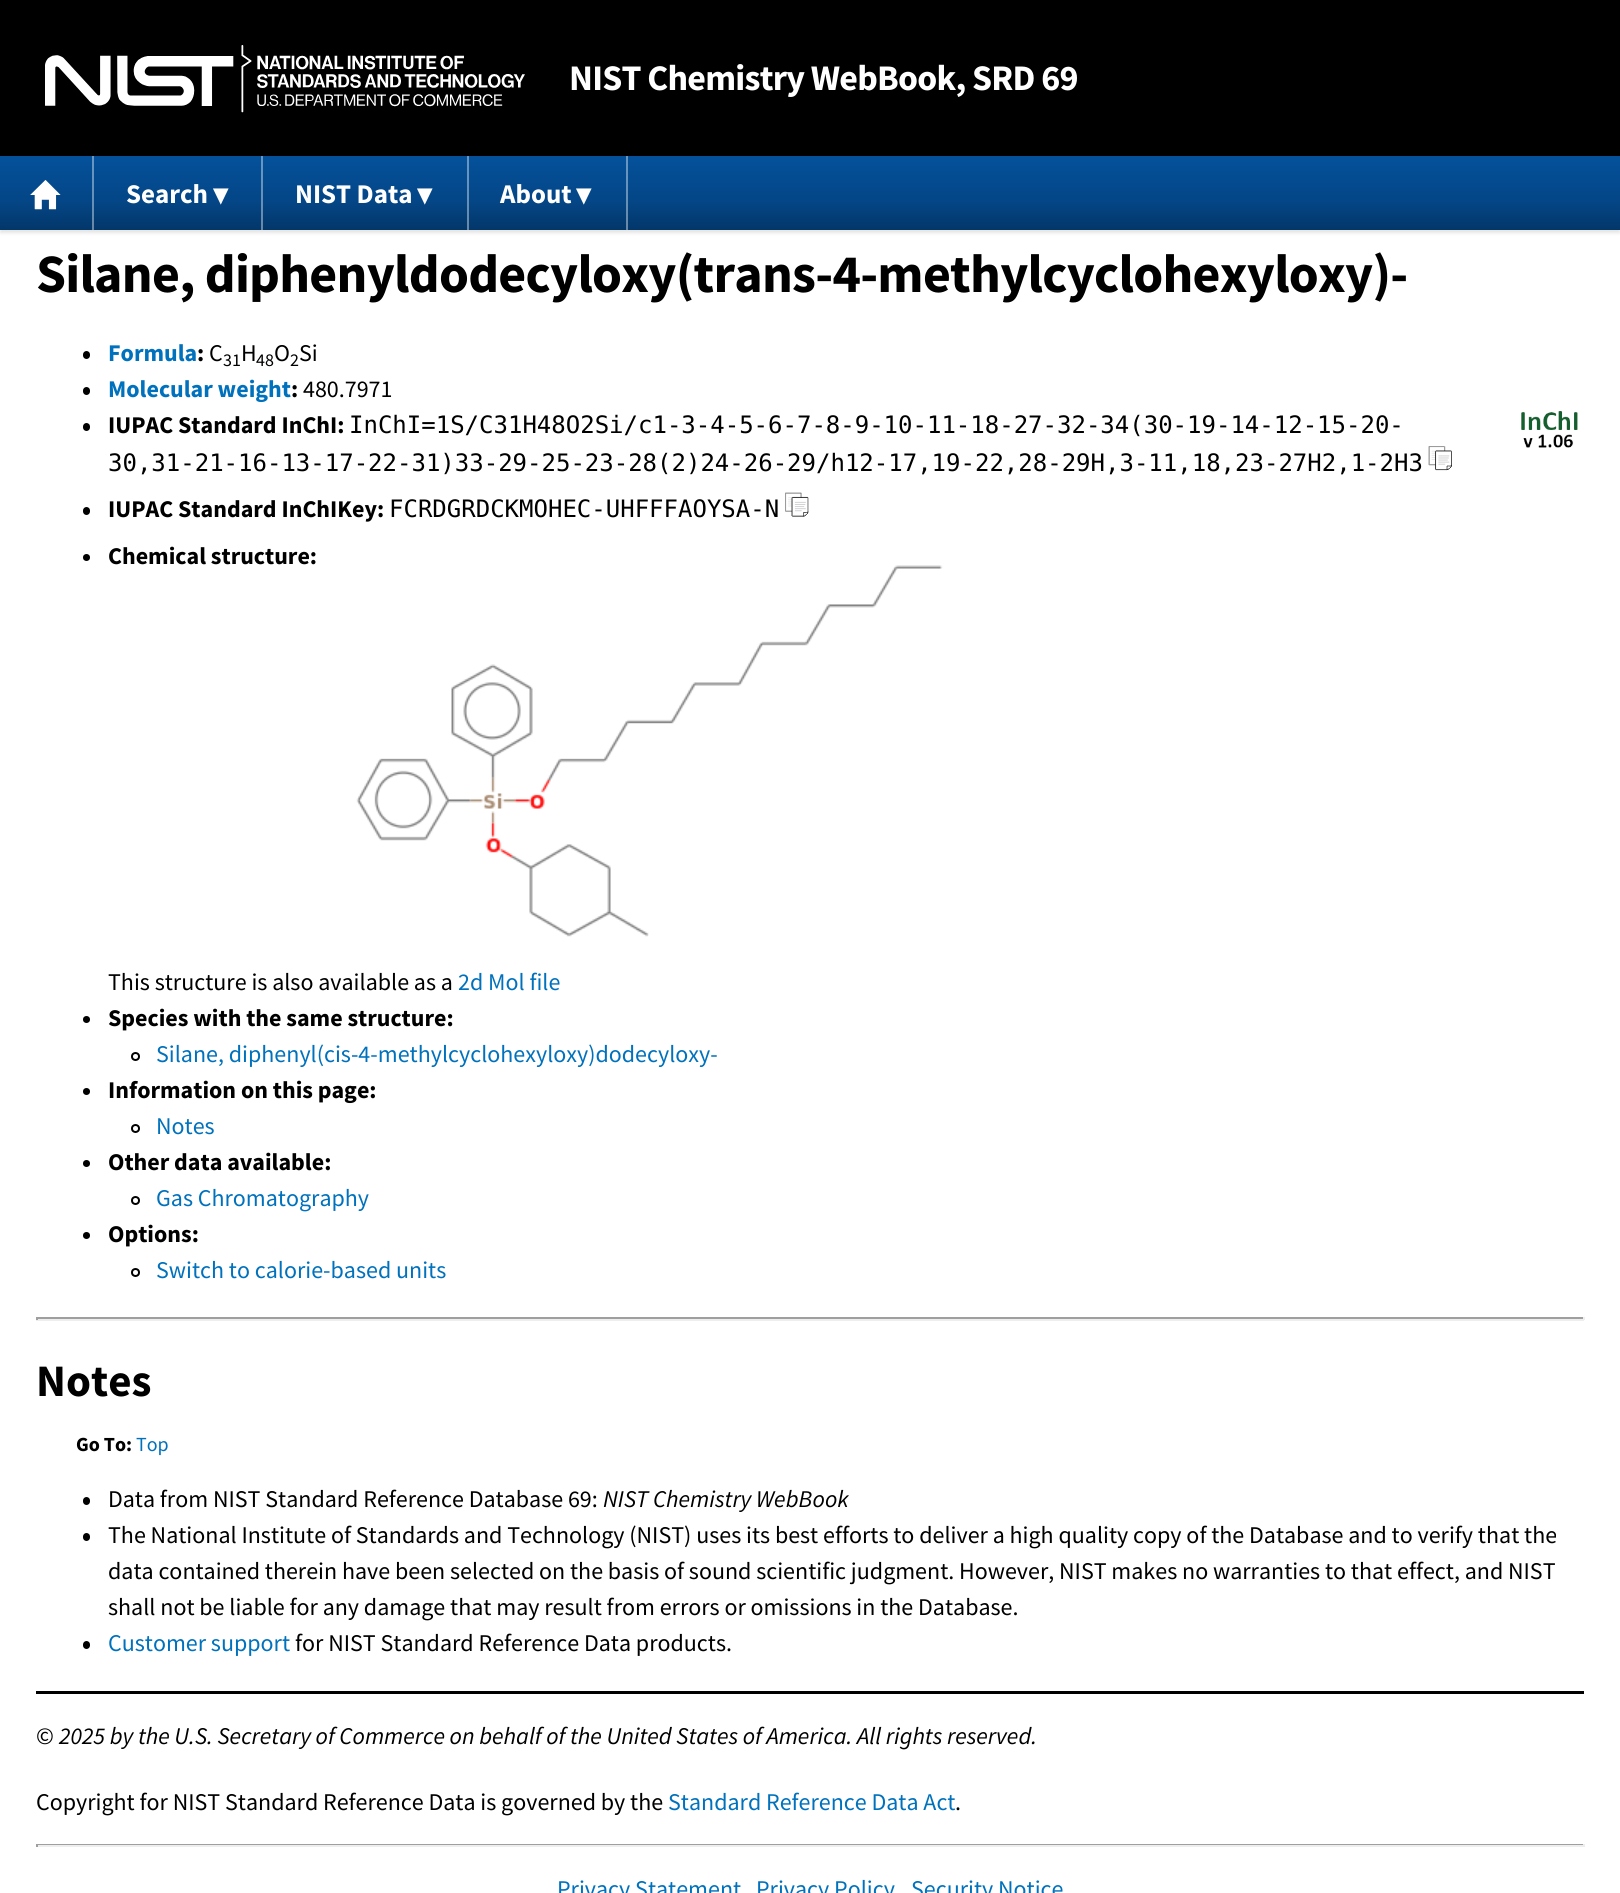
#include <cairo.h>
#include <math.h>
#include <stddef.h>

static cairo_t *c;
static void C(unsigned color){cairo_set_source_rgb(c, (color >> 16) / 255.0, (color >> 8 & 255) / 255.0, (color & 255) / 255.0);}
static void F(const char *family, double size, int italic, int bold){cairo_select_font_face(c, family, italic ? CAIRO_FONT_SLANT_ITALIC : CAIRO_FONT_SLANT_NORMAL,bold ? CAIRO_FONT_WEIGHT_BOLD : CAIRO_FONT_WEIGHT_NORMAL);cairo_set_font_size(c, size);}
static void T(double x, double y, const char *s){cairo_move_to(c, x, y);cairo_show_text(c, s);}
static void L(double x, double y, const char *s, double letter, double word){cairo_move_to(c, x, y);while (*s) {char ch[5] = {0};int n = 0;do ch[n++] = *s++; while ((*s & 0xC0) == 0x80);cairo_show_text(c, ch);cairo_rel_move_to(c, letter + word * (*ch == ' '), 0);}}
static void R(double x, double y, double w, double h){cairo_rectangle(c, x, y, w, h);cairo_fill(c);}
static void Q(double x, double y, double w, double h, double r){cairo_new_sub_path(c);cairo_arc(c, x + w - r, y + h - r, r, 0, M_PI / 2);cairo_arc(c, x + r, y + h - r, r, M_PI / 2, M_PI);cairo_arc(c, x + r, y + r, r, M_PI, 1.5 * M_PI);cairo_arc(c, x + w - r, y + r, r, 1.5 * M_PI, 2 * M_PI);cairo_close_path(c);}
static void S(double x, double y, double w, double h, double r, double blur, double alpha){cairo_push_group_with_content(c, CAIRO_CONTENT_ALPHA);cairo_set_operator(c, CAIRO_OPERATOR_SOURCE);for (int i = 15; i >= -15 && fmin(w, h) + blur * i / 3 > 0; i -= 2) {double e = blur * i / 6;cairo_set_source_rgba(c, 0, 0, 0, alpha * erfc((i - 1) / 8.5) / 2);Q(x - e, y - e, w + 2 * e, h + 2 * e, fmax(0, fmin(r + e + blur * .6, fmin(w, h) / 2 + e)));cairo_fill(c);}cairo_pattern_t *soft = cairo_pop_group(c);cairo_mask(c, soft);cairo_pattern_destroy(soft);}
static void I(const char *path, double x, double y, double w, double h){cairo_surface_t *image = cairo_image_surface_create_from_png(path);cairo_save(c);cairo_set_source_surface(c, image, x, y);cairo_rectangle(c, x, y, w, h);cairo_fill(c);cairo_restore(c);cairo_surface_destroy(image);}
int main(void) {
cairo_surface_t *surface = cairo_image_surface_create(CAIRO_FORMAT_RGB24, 1620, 1893);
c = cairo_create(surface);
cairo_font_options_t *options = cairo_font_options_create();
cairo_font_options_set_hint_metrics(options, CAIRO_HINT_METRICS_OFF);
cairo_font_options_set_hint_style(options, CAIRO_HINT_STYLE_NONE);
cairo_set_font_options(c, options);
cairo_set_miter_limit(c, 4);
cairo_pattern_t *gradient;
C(0xffffff);
cairo_paint(c);
C(0x000000);
S(0,159,1620,74,0,1.5,.1);
C(0x000000);
R(0,0,1620,156);
I("1.png",45,45,480,68);
F("Source Sans Pro",36,0,1);
C(0xffffff);
L(569,90,"NIST Chemistry WebBook, SRD 69",-.75,0);
gradient = cairo_pattern_create_linear(810,156,810,230);
cairo_pattern_add_color_stop_rgba(gradient,0,0.016,0.318,0.608,1);
cairo_pattern_add_color_stop_rgba(gradient,.6,0.016,0.275,0.529,1);
cairo_pattern_add_color_stop_rgba(gradient,1,0.012,0.216,0.412,1);
cairo_set_source(c,gradient);
cairo_pattern_destroy(gradient);
R(0,156,1620,74);
cairo_set_source_rgba(c,1,1,1,0.4);
R(92,156,2,74);
I("2.png",30,180,31,30);
R(261,156,2,74);
F("Source Sans Pro",27,0,1);
C(0xffffff);
T(126,203,"Search");
F("Source Sans Pro",20,0,1);
T(212,203,"▼");
cairo_set_source_rgba(c,1,1,1,0.4);
R(467,156,2,74);
F("Source Sans Pro",27,0,1);
C(0xffffff);
T(295,203,"NIST Data");
F("Source Sans Pro",20,0,1);
T(416,203,"▼");
cairo_set_source_rgba(c,1,1,1,0.4);
R(626,156,2,74);
F("Source Sans Pro",27,0,1);
C(0xffffff);
T(500,203,"About");
F("Source Sans Pro",20,0,1);
T(575,203,"▼");
F("Source Sans Pro",54,0,1);
C(0x000000);
L(36,292,"Silane, diphenyldodecyloxy(trans-4-methylcyclohexyloxy)-",-.75,0);
Q(83,351,7,8,3.5);
cairo_fill(c);
F("Source Sans Pro",24,0,1);
C(0x0071bc);
T(108,361,"Formula");
C(0x000000);
T(197,361,":");
F("Source Sans Pro",24,0,0);
T(209,361,"C");
F("Source Sans Pro",18,0,0);
T(223,366,"31");
F("Source Sans Pro",24,0,0);
T(241,361,"H");
F("Source Sans Pro",18,0,0);
T(256,366,"48");
F("Source Sans Pro",24,0,0);
T(274,361,"O");
F("Source Sans Pro",18,0,0);
T(290,366,"2");
F("Source Sans Pro",24,0,0);
T(299,361,"Si");
Q(83,387,7,8,3.5);
cairo_fill(c);
F("Source Sans Pro",24,0,1);
C(0x0071bc);
T(108,397,"Molecular weight");
C(0x000000);
T(291,397,":");
F("Source Sans Pro",24,0,0);
T(303,397,"480.7971");
Q(83,423,7,8,3.5);
cairo_fill(c);
F("Source Sans Pro",24,0,1);
T(108,433,"IUPAC Standard InChI:");
F("DejaVu Sans Mono",24,0,0);
T(349,433,"InChI=1S/C31H48O2Si/c1-3-4-5-6-7-8-9-10-11-18-27-32-34(30-19-14-12-15-20-");
T(108,471,"30,31-21-16-13-17-22-31)33-29-25-23-28(2)24-26-29/h12-17,19-22,28-29H,3-11,18,23-27H2,1-2H3");
I("3.png",1428,446,24,25);
I("4.png",1521,411,57,37);
Q(83,507,7,8,3.5);
cairo_fill(c);
F("Source Sans Pro",24,0,1);
T(108,517,"IUPAC Standard InChIKey:");
F("DejaVu Sans Mono",24,0,0);
T(389,517,"FCRDGRDCKMOHEC-UHFFFAOYSA-N");
I("5.png",785,492,24,25);
cairo_arc(c,86.5,557.5,3.5,0,2 * M_PI);
cairo_fill(c);
F("Source Sans Pro",24,0,1);
T(108,564,"Chemical structure:");
I("6.png",356,565,587,372);
F("Source Sans Pro",24,0,0);
T(108,990,"This structure is also available as a");
C(0x0071bc);
T(458,990,"2d Mol file");
C(0x000000);
cairo_new_path(c);
cairo_arc(c,86.5,1019.5,3.5,0,2 * M_PI);
cairo_fill(c);
F("Source Sans Pro",24,0,1);
T(108,1026,"Species with the same structure:");
cairo_new_path(c);
cairo_arc(c,135.5,1056.5,3.5,0,2 * M_PI);
cairo_stroke(c);
F("Source Sans Pro",24,0,0);
C(0x0071bc);
T(156,1062,"Silane, diphenyl(cis-4-methylcyclohexyloxy)dodecyloxy-");
C(0x000000);
cairo_new_path(c);
cairo_arc(c,86.5,1091.5,3.5,0,2 * M_PI);
cairo_fill(c);
F("Source Sans Pro",24,0,1);
T(108,1098,"Information on this page:");
cairo_new_path(c);
cairo_arc(c,135.5,1128.5,3.5,0,2 * M_PI);
cairo_stroke(c);
F("Source Sans Pro",24,0,0);
C(0x0071bc);
T(156,1134,"Notes");
C(0x000000);
cairo_new_path(c);
cairo_arc(c,86.5,1163.5,3.5,0,2 * M_PI);
cairo_fill(c);
F("Source Sans Pro",24,0,1);
T(108,1170,"Other data available:");
cairo_new_path(c);
cairo_arc(c,135.5,1200.5,3.5,0,2 * M_PI);
cairo_stroke(c);
F("Source Sans Pro",24,0,0);
C(0x0071bc);
T(156,1206,"Gas Chromatography");
C(0x000000);
cairo_new_path(c);
cairo_arc(c,86.5,1235.5,3.5,0,2 * M_PI);
cairo_fill(c);
F("Source Sans Pro",24,0,1);
T(108,1242,"Options:");
cairo_new_path(c);
cairo_arc(c,135.5,1272.5,3.5,0,2 * M_PI);
cairo_stroke(c);
F("Source Sans Pro",24,0,0);
C(0x0071bc);
T(156,1278,"Switch to calorie-based units");
C(0x9f9f9f);
R(36,1317,1548,2);
C(0xeeeeee);
R(1583,1317,2,3);
R(36,1319,1548,2);
C(0x9f9f9f);
R(36,1317,2,3);
F("Source Sans Pro",45,0,1);
C(0x000000);
T(36,1396,"Notes");
F("Source Sans Pro",20,0,1);
T(76,1451,"Go To:");
F("Source Sans Pro",20,0,0);
C(0x0071bc);
T(136,1451,"Top");
C(0x000000);
Q(83,1497,7,8,3.5);
cairo_fill(c);
F("Source Sans Pro",24,0,0);
T(108,1507,"Data from NIST Standard Reference Database 69:");
F("Source Sans Pro",24,1,0);
T(603,1507,"NIST Chemistry WebBook");
Q(83,1533,7,8,3.5);
cairo_fill(c);
F("Source Sans Pro",24,0,0);
T(108,1543,"The National Institute of Standards and Technology (NIST) uses its best efforts to deliver a high quality copy of the Database and to verify that the");
T(108,1579,"data contained therein have been selected on the basis of sound scientific judgment. However, NIST makes no warranties to that effect, and NIST");
T(108,1615,"shall not be liable for any damage that may result from errors or omissions in the Database.");
Q(83,1641,7,8,3.5);
cairo_fill(c);
C(0x0071bc);
T(108,1651,"Customer support");
C(0x000000);
T(295,1651,"for NIST Standard Reference Data products.");
R(36,1691,1548,3);
T(36,1744,"©");
F("Source Sans Pro",24,1,0);
T(59,1744,"2025 by the U.S. Secretary of Commerce on behalf of the United States of America. All rights reserved.");
F("Source Sans Pro",24,0,0);
T(36,1810,"Copyright for NIST Standard Reference Data is governed by the");
C(0x0071bc);
T(668,1810,"Standard Reference Data Act");
C(0x000000);
T(955,1810,".");
C(0x9f9f9f);
R(36,1844,1548,1);
C(0xeeeeee);
R(1583,1844,2,3);
R(36,1845,1548,2);
C(0x9f9f9f);
R(36,1844,2,3);
C(0x0071bc);
T(557,1897,"Privacy Statement");
T(756,1897,"Privacy Policy");
T(911,1897,"Security Notice");
cairo_surface_write_to_png(surface, "o.png");
cairo_font_options_destroy(options);
cairo_destroy(c);
cairo_surface_destroy(surface);
return 0;
}
